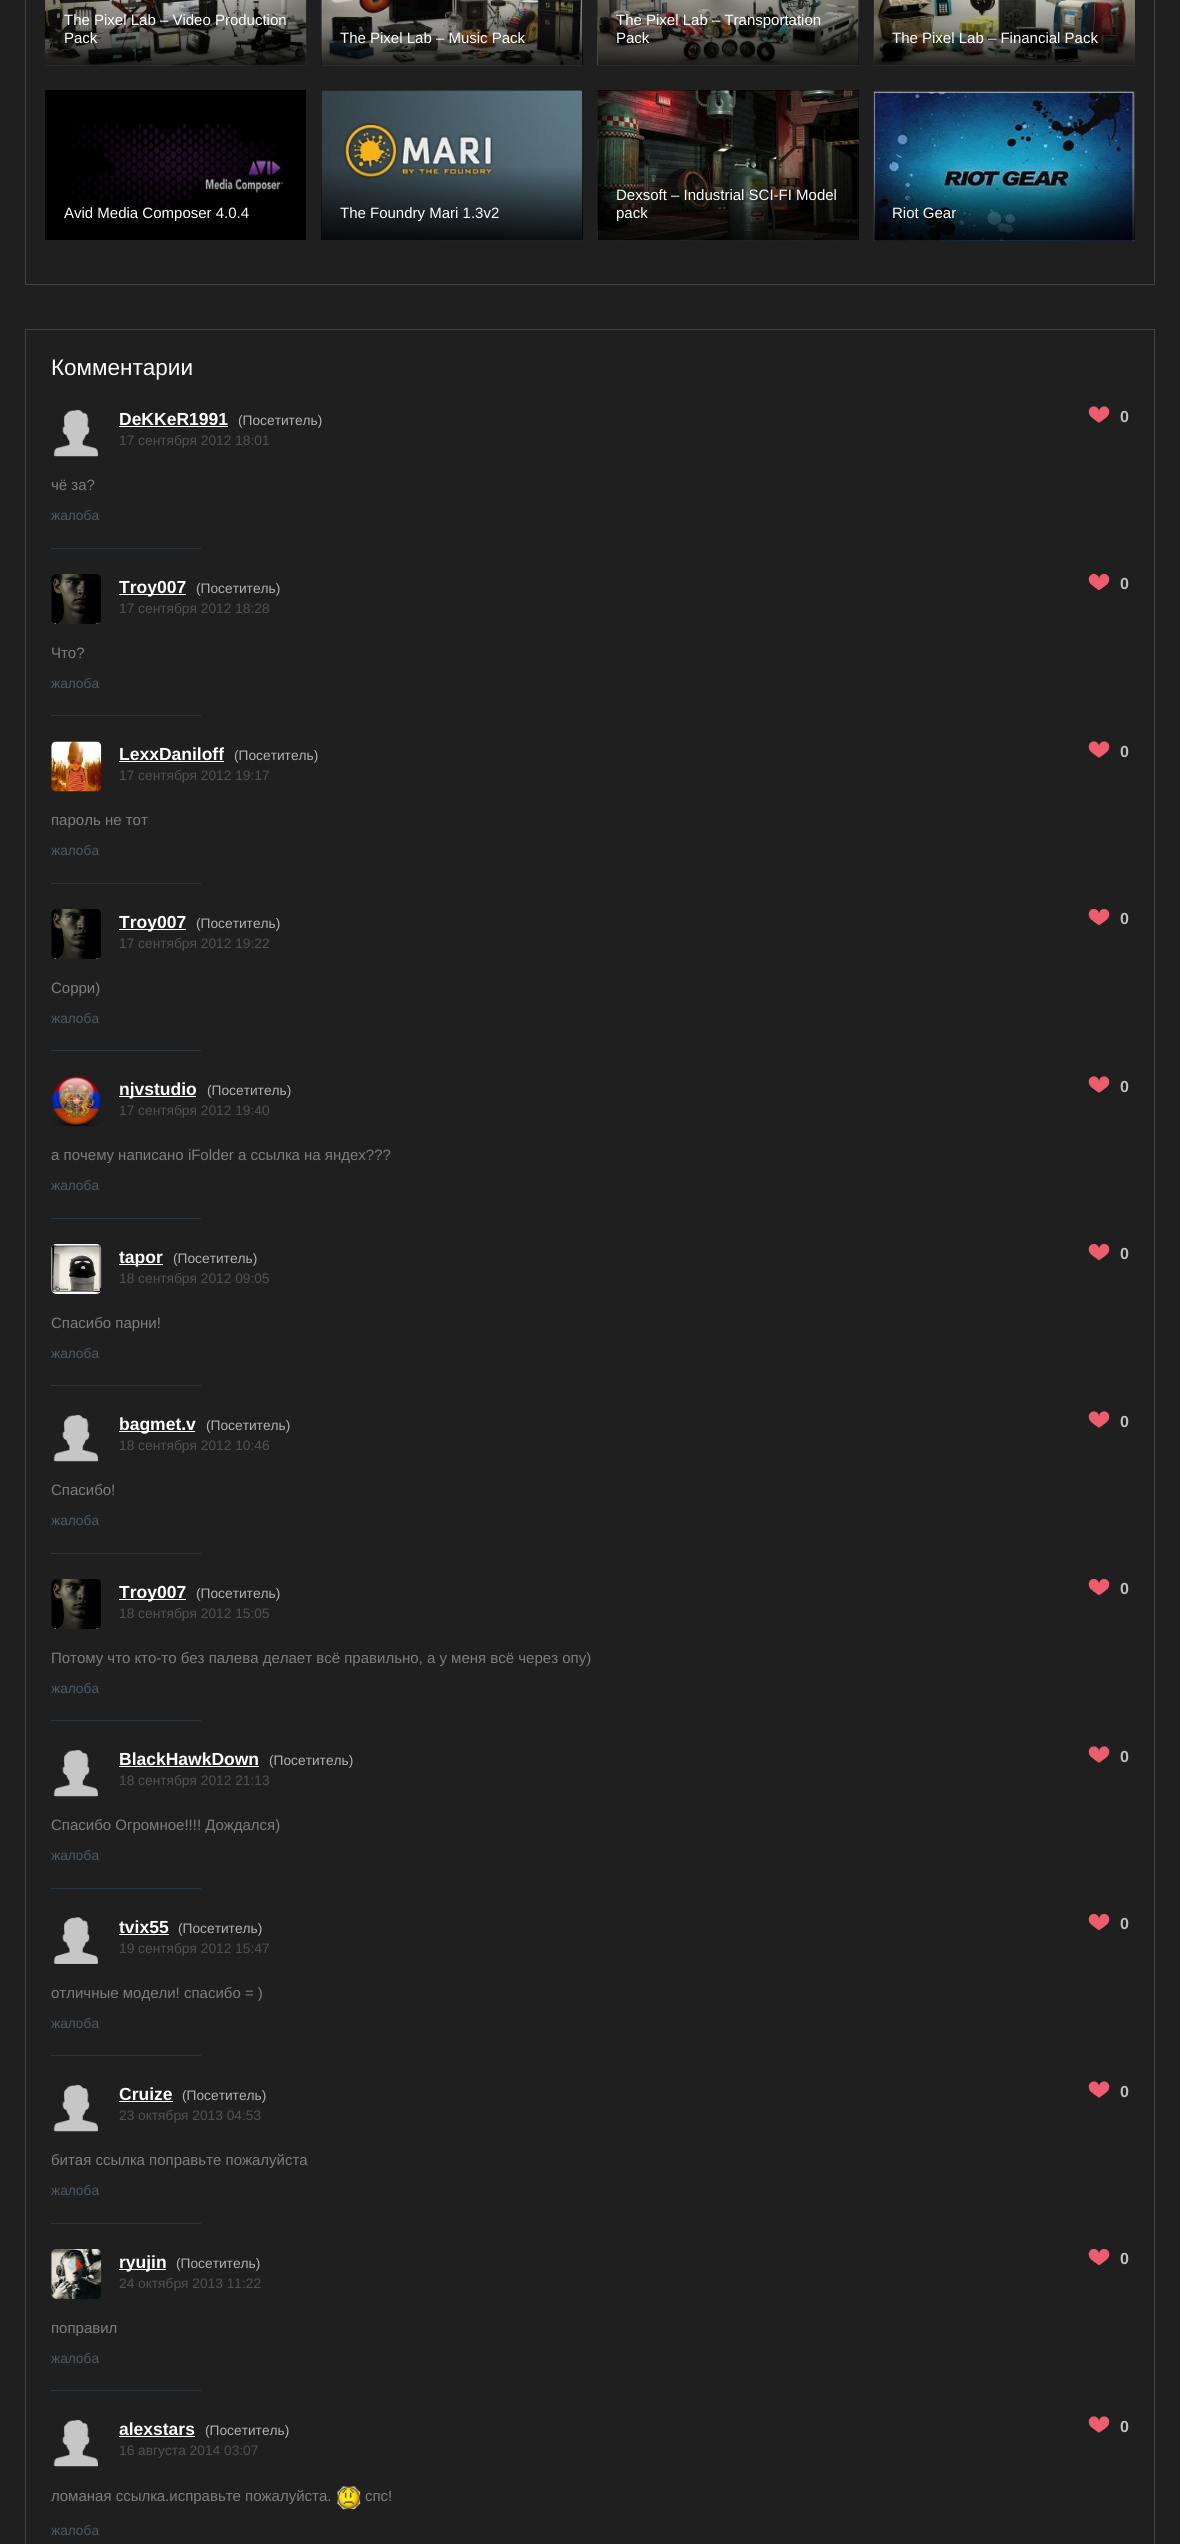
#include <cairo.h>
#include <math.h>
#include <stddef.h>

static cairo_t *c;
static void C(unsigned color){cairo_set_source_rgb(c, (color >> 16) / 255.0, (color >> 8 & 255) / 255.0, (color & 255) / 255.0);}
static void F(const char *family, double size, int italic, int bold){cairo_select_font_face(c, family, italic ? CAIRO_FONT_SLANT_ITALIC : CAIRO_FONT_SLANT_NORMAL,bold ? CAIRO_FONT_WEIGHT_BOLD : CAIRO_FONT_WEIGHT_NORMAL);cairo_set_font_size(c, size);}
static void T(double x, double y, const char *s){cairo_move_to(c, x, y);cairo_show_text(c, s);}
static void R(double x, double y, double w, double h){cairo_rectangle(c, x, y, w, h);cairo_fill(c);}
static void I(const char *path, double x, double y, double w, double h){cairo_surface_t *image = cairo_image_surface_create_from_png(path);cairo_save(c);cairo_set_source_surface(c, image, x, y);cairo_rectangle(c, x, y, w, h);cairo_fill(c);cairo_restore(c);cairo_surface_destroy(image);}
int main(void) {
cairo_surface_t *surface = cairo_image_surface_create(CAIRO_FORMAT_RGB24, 1180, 2544);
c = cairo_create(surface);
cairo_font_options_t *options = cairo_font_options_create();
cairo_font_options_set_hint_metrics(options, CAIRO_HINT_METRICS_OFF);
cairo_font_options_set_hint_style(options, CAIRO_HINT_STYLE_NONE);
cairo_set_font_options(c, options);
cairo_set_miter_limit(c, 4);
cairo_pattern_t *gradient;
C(0x1f1f1f);
cairo_paint(c);
cairo_rectangle(c,25.5,-.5,1129,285);
C(0x444444);
cairo_set_line_width(c,1);
cairo_stroke(c);
I("1.png",45,0,262,66);
F("Liberation Sans",15,0,0);
C(0xffffff);
T(64,25,"The Pixel Lab – Video Production");
T(64,43,"Pack");
C(0x000000);
R(321,0,262,65);
I("2.png",321,0,262,66);
gradient = cairo_pattern_create_linear(452,65,452,-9);
cairo_pattern_add_color_stop_rgba(gradient,0,0,0,0,.85);
cairo_pattern_add_color_stop_rgba(gradient,1,0,0,0,0);
cairo_set_source(c,gradient);
cairo_pattern_destroy(gradient);
R(321,0,262,65);
C(0xffffff);
T(340,43,"The Pixel Lab – Music Pack");
C(0x000000);
R(858,0,1,65);
I("3.png",597,0,262,66);
gradient = cairo_pattern_create_linear(728,65,728,-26);
cairo_pattern_add_color_stop_rgba(gradient,0,0,0,0,.85);
cairo_pattern_add_color_stop_rgba(gradient,1,0,0,0,0);
cairo_set_source(c,gradient);
cairo_pattern_destroy(gradient);
R(598,0,261,65);
C(0xffffff);
T(616,25,"The Pixel Lab – Transportation");
T(616,43,"Pack");
I("4.png",873,0,262,66);
T(892,43,"The Pixel Lab – Financial Pack");
C(0x000000);
R(45,90,261,150);
I("5.png",72,123,211,92);
gradient = cairo_pattern_create_linear(176,240,176,166);
cairo_pattern_add_color_stop_rgba(gradient,0,0,0,0,.85);
cairo_pattern_add_color_stop_rgba(gradient,1,0,0,0,0);
cairo_set_source(c,gradient);
cairo_pattern_destroy(gradient);
R(79,168,204,47);
C(0xffffff);
T(64,218,"Avid Media Composer 4.0.4");
C(0x000000);
R(321,90,262,150);
I("6.png",321,90,262,151);
gradient = cairo_pattern_create_linear(452,240,452,166);
cairo_pattern_add_color_stop_rgba(gradient,0,0,0,0,.85);
cairo_pattern_add_color_stop_rgba(gradient,1,0,0,0,0);
cairo_set_source(c,gradient);
cairo_pattern_destroy(gradient);
R(321,168,262,72);
C(0xffffff);
T(340,218,"The Foundry Mari 1.3v2");
C(0x000000);
R(598,90,261,150);
I("7.png",597,90,262,151);
gradient = cairo_pattern_create_linear(728,240,728,149);
cairo_pattern_add_color_stop_rgba(gradient,0,0,0,0,.85);
cairo_pattern_add_color_stop_rgba(gradient,1,0,0,0,0);
cairo_set_source(c,gradient);
cairo_pattern_destroy(gradient);
R(598,151,261,89);
C(0xffffff);
T(616,200,"Dexsoft – Industrial SCI-FI Model");
T(616,218,"pack");
C(0x000000);
R(874,90,261,1);
I("8.png",873,90,262,151);
C(0xffffff);
T(892,218,"Riot Gear");
cairo_rectangle(c,25.5,329.5,1129,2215);
C(0x444444);
cairo_stroke(c);
F("Liberation Sans",22.5,0,0);
C(0xffffff);
T(51,375,"Комментарии");
I("9.png",53,409,45,48);
F("Liberation Sans",17.5,0,1);
T(119,425,"DeKKeR1991");
R(119,426,109,1);
F("Liberation Sans",13.75,0,0);
C(0xb3b3b3);
T(238,425,"(Посетитель)");
I("10.png",1088,406,22,17);
F("Liberation Sans",16,0,1);
C(0xbfbfbf);
T(1120,422,"0");
F("Liberation Sans",13.75,0,0);
C(0x515151);
T(119,445,"17 сентября 2012 18:01");
F("Liberation Sans",15,0,0);
C(0x7d7d7d);
T(51,490,"чё за?");
F("Liberation Sans",13.75,0,0);
C(0x4c5a65);
T(51,520,"жалоба");
C(0x2c363f);
R(51,548,150,1);
I("11.png",51,574,50,50);
C(0xffffff);
R(119,594,67,1);
F("Liberation Sans",17.5,0,1);
T(119,593,"Troy007");
F("Liberation Sans",13.75,0,0);
C(0xb3b3b3);
T(196,593,"(Посетитель)");
I("12.png",1088,573,22,18);
F("Liberation Sans",16,0,1);
C(0xbfbfbf);
T(1120,589,"0");
F("Liberation Sans",13.75,0,0);
C(0x515151);
T(119,613,"17 сентября 2012 18:28");
F("Liberation Sans",15,0,0);
C(0x7d7d7d);
T(51,658,"Что?");
F("Liberation Sans",13.75,0,0);
C(0x4c5a65);
T(51,688,"жалоба");
C(0x2c363f);
R(51,715,150,1);
I("13.png",51,741,51,51);
F("Liberation Sans",17.5,0,1);
C(0xffffff);
T(119,760,"LexxDaniloff");
R(119,761,105,1);
F("Liberation Sans",13.75,0,0);
C(0xb3b3b3);
T(234,760,"(Посетитель)");
I("10.png",1088,741,22,17);
F("Liberation Sans",16,0,1);
C(0xbfbfbf);
T(1120,757,"0");
F("Liberation Sans",13.75,0,0);
C(0x515151);
T(119,780,"17 сентября 2012 19:17");
F("Liberation Sans",15,0,0);
C(0x7d7d7d);
T(51,825,"пароль не тот");
F("Liberation Sans",13.75,0,0);
C(0x4c5a65);
T(51,855,"жалоба");
C(0x2c363f);
R(51,883,150,1);
I("11.png",51,909,50,50);
C(0xffffff);
R(119,929,67,1);
F("Liberation Sans",17.5,0,1);
T(119,928,"Troy007");
F("Liberation Sans",13.75,0,0);
C(0xb3b3b3);
T(196,928,"(Посетитель)");
I("12.png",1088,908,22,18);
F("Liberation Sans",16,0,1);
C(0xbfbfbf);
T(1120,924,"0");
F("Liberation Sans",13.75,0,0);
C(0x515151);
T(119,948,"17 сентября 2012 19:22");
F("Liberation Sans",15,0,0);
C(0x7d7d7d);
T(51,993,"Сорри)");
F("Liberation Sans",13.75,0,0);
C(0x4c5a65);
T(51,1023,"жалоба");
C(0x2c363f);
R(51,1050,150,1);
I("14.png",52,1076,49,51);
C(0xffffff);
R(119,1096,77,1);
F("Liberation Sans",17.5,0,1);
T(119,1095,"njvstudio");
F("Liberation Sans",13.75,0,0);
C(0xb3b3b3);
T(207,1095,"(Посетитель)");
I("10.png",1088,1076,22,17);
F("Liberation Sans",16,0,1);
C(0xbfbfbf);
T(1120,1092,"0");
F("Liberation Sans",13.75,0,0);
C(0x515151);
T(119,1115,"17 сентября 2012 19:40");
F("Liberation Sans",15,0,0);
C(0x7d7d7d);
T(51,1160,"а почему написано iFolder а ссылка на яндех?\077?");
F("Liberation Sans",13.75,0,0);
C(0x4c5a65);
T(51,1190,"жалоба");
C(0x2c363f);
R(51,1218,150,1);
I("15.png",51,1244,51,50);
C(0xffffff);
R(119,1264,44,1);
F("Liberation Sans",17.5,0,1);
T(119,1263,"tapor");
F("Liberation Sans",13.75,0,0);
C(0xb3b3b3);
T(173,1263,"(Посетитель)");
I("12.png",1088,1243,22,18);
F("Liberation Sans",16,0,1);
C(0xbfbfbf);
T(1120,1259,"0");
F("Liberation Sans",13.75,0,0);
C(0x515151);
T(119,1283,"18 сентября 2012 09:05");
F("Liberation Sans",15,0,0);
C(0x7d7d7d);
T(51,1328,"Спасибо парни!");
F("Liberation Sans",13.75,0,0);
C(0x4c5a65);
T(51,1358,"жалоба");
C(0x2c363f);
R(51,1385,150,1);
I("9.png",53,1414,45,48);
C(0xffffff);
R(119,1431,76,1);
F("Liberation Sans",17.5,0,1);
T(119,1430,"bagmet.v");
F("Liberation Sans",13.75,0,0);
C(0xb3b3b3);
T(206,1430,"(Посетитель)");
I("10.png",1088,1411,22,17);
F("Liberation Sans",16,0,1);
C(0xbfbfbf);
T(1120,1427,"0");
F("Liberation Sans",13.75,0,0);
C(0x515151);
T(119,1450,"18 сентября 2012 10:46");
F("Liberation Sans",15,0,0);
C(0x7d7d7d);
T(51,1495,"Спасибо!");
F("Liberation Sans",13.75,0,0);
C(0x4c5a65);
T(51,1525,"жалоба");
C(0x2c363f);
R(51,1553,150,1);
I("11.png",51,1579,50,50);
C(0xffffff);
R(119,1599,67,1);
F("Liberation Sans",17.5,0,1);
T(119,1598,"Troy007");
F("Liberation Sans",13.75,0,0);
C(0xb3b3b3);
T(196,1598,"(Посетитель)");
I("12.png",1088,1578,22,18);
F("Liberation Sans",16,0,1);
C(0xbfbfbf);
T(1120,1594,"0");
F("Liberation Sans",13.75,0,0);
C(0x515151);
T(119,1618,"18 сентября 2012 15:05");
F("Liberation Sans",15,0,0);
C(0x7d7d7d);
T(51,1663,"Потому что кто-то без палева делает всё правильно, а у меня всё через опу)");
F("Liberation Sans",13.75,0,0);
C(0x4c5a65);
T(51,1693,"жалоба");
C(0x2c363f);
R(51,1720,150,1);
I("9.png",53,1749,45,48);
F("Liberation Sans",17.5,0,1);
C(0xffffff);
T(119,1765,"BlackHawkDown");
R(119,1766,140,1);
F("Liberation Sans",13.75,0,0);
C(0xb3b3b3);
T(269,1765,"(Посетитель)");
I("10.png",1088,1746,22,17);
F("Liberation Sans",16,0,1);
C(0xbfbfbf);
T(1120,1762,"0");
F("Liberation Sans",13.75,0,0);
C(0x515151);
T(119,1785,"18 сентября 2012 21:13");
F("Liberation Sans",15,0,0);
C(0x7d7d7d);
T(51,1830,"Спасибо Огромное!!!! Дождался)");
F("Liberation Sans",13.75,0,0);
C(0x4c5a65);
T(51,1860,"жалоба");
C(0x2c363f);
R(51,1888,150,1);
I("16.png",53,1917,45,47);
F("Liberation Sans",17.5,0,1);
C(0xffffff);
T(119,1933,"tvix55");
R(119,1934,50,1);
F("Liberation Sans",13.75,0,0);
C(0xb3b3b3);
T(178,1933,"(Посетитель)");
I("12.png",1088,1913,22,18);
F("Liberation Sans",16,0,1);
C(0xbfbfbf);
T(1120,1929,"0");
F("Liberation Sans",13.75,0,0);
C(0x515151);
T(119,1953,"19 сентября 2012 15:47");
F("Liberation Sans",15,0,0);
C(0x7d7d7d);
T(51,1998,"отличные модели! спасибо = )");
F("Liberation Sans",13.75,0,0);
C(0x4c5a65);
T(51,2028,"жалоба");
C(0x2c363f);
R(51,2055,150,1);
I("9.png",53,2084,45,48);
F("Liberation Sans",17.5,0,1);
C(0xffffff);
T(119,2100,"Cruize");
R(119,2101,54,1);
F("Liberation Sans",13.75,0,0);
C(0xb3b3b3);
T(182,2100,"(Посетитель)");
I("10.png",1088,2081,22,17);
F("Liberation Sans",16,0,1);
C(0xbfbfbf);
T(1120,2097,"0");
F("Liberation Sans",13.75,0,0);
C(0x515151);
T(119,2120,"23 октября 2013 04:53");
F("Liberation Sans",15,0,0);
C(0x7d7d7d);
T(51,2165,"битая ссылка поправьте пожалуйста");
F("Liberation Sans",13.75,0,0);
C(0x4c5a65);
T(51,2195,"жалоба");
C(0x2c363f);
R(51,2223,150,1);
I("17.png",51,2249,51,50);
C(0xffffff);
R(119,2269,47,1);
F("Liberation Sans",17.5,0,1);
T(119,2268,"ryujin");
F("Liberation Sans",13.75,0,0);
C(0xb3b3b3);
T(176,2268,"(Посетитель)");
I("12.png",1088,2248,22,18);
F("Liberation Sans",16,0,1);
C(0xbfbfbf);
T(1120,2264,"0");
F("Liberation Sans",13.75,0,0);
C(0x515151);
T(119,2288,"24 октября 2013 11:22");
F("Liberation Sans",15,0,0);
C(0x7d7d7d);
T(51,2333,"поправил");
F("Liberation Sans",13.75,0,0);
C(0x4c5a65);
T(51,2363,"жалоба");
C(0x2c363f);
R(51,2390,150,1);
I("9.png",53,2419,45,48);
F("Liberation Sans",17.5,0,1);
C(0xffffff);
T(119,2435,"alexstars");
R(119,2436,76,1);
F("Liberation Sans",13.75,0,0);
C(0xb3b3b3);
T(205,2435,"(Посетитель)");
I("10.png",1088,2416,22,17);
F("Liberation Sans",16,0,1);
C(0xbfbfbf);
T(1120,2432,"0");
F("Liberation Sans",13.75,0,0);
C(0x515151);
T(119,2455,"16 августа 2014 03:07");
F("Liberation Sans",15,0,0);
C(0x7d7d7d);
T(51,2501,"ломаная ссылка.исправьте пожалуйста.");
I("18.png",337,2486,24,24);
T(365,2501,"спс!");
F("Liberation Sans",13.75,0,0);
C(0x4c5a65);
T(51,2535,"жалоба");
cairo_surface_write_to_png(surface, "o.png");
cairo_font_options_destroy(options);
cairo_destroy(c);
cairo_surface_destroy(surface);
return 0;
}
